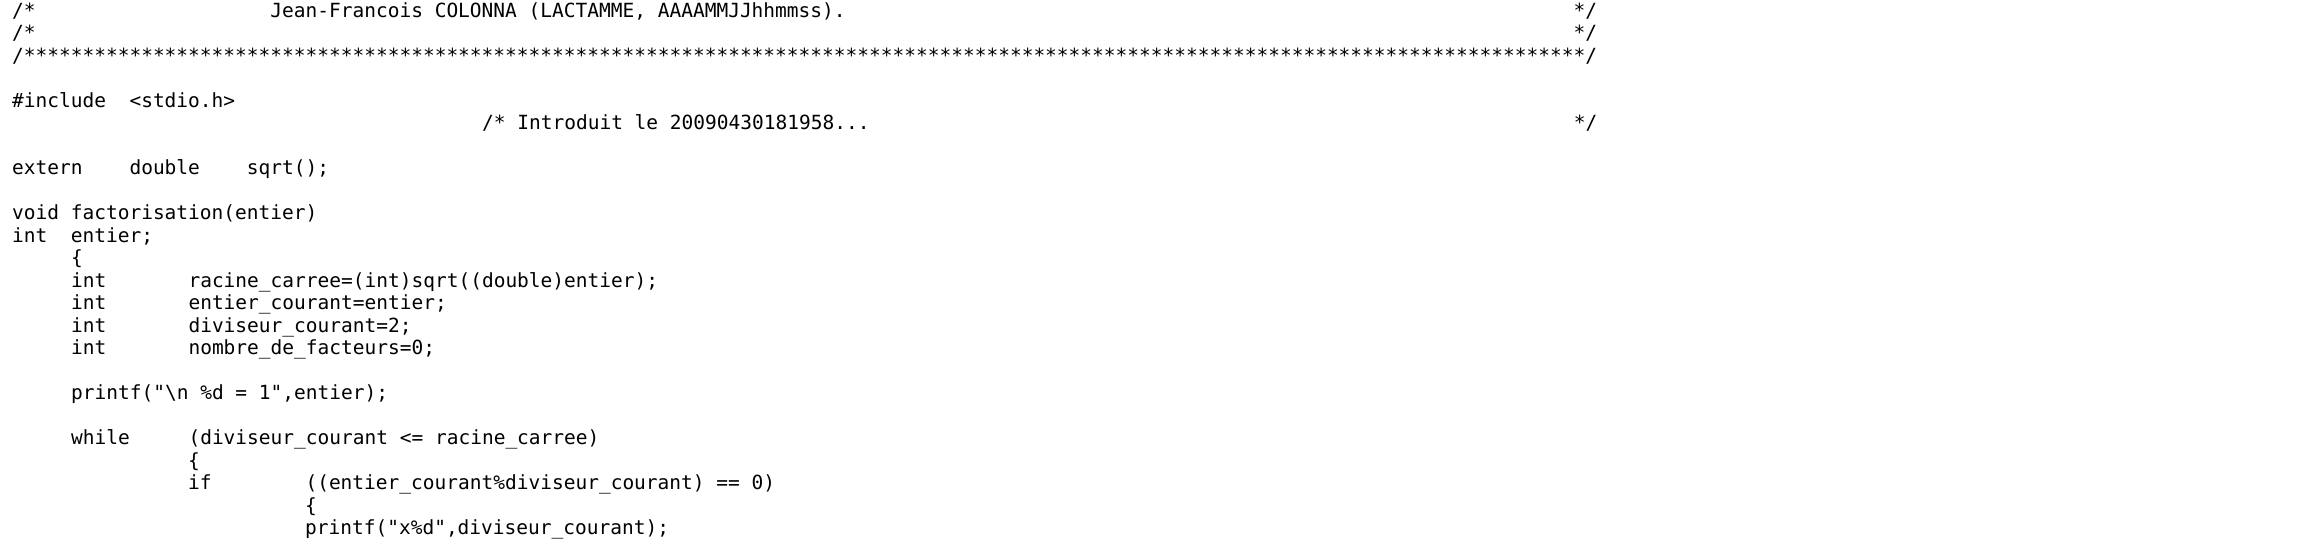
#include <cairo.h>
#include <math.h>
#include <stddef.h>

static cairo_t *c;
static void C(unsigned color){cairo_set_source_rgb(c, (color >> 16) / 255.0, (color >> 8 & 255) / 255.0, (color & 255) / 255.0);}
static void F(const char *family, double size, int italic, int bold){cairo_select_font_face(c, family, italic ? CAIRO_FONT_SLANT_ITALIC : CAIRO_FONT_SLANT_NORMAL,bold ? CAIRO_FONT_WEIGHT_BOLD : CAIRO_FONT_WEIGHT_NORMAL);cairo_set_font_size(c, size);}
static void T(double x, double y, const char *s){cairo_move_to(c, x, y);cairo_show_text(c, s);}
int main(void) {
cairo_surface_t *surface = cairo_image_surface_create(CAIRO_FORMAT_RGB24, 2302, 552);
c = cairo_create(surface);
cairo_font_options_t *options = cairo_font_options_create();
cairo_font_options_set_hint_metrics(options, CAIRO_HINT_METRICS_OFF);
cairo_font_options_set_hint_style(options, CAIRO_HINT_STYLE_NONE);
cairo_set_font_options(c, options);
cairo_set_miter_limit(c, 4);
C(0xffffff);
cairo_paint(c);
F("DejaVu Sans Mono",19.5,0,0);
C(0x000000);
T(12,17,"/*                    Jean-Francois COLONNA (LACTAMME, AAAAMMJJhhmmss).                                                              */");
T(12,39,"/*                                                                                                                                   */");
T(12,62,"/*************************************************************************************************************************************/");
T(12,107,"#include  <stdio.h>");
T(482,129,"/* Introduit le 20090430181958...                                                            */");
T(12,174,"extern    double    sqrt();");
T(12,219,"void factorisation(entier)");
T(12,242,"int  entier;");
T(71,264,"{");
T(71,287,"int       racine_carree=(int)sqrt((double)entier);");
T(71,309,"int       entier_courant=entier;");
T(71,332,"int       diviseur_courant=2;");
T(71,354,"int       nombre_de_facteurs=0;");
T(71,399,"printf(\"\\n %d = 1\",entier);");
T(71,444,"while     (diviseur_courant <= racine_carree)");
T(188,467,"{");
T(188,489,"if        ((entier_courant%diviseur_courant) == 0)");
T(305,512,"{");
T(305,534,"printf(\"x%d\",diviseur_courant);");
cairo_surface_write_to_png(surface, "o.png");
cairo_font_options_destroy(options);
cairo_destroy(c);
cairo_surface_destroy(surface);
return 0;
}
